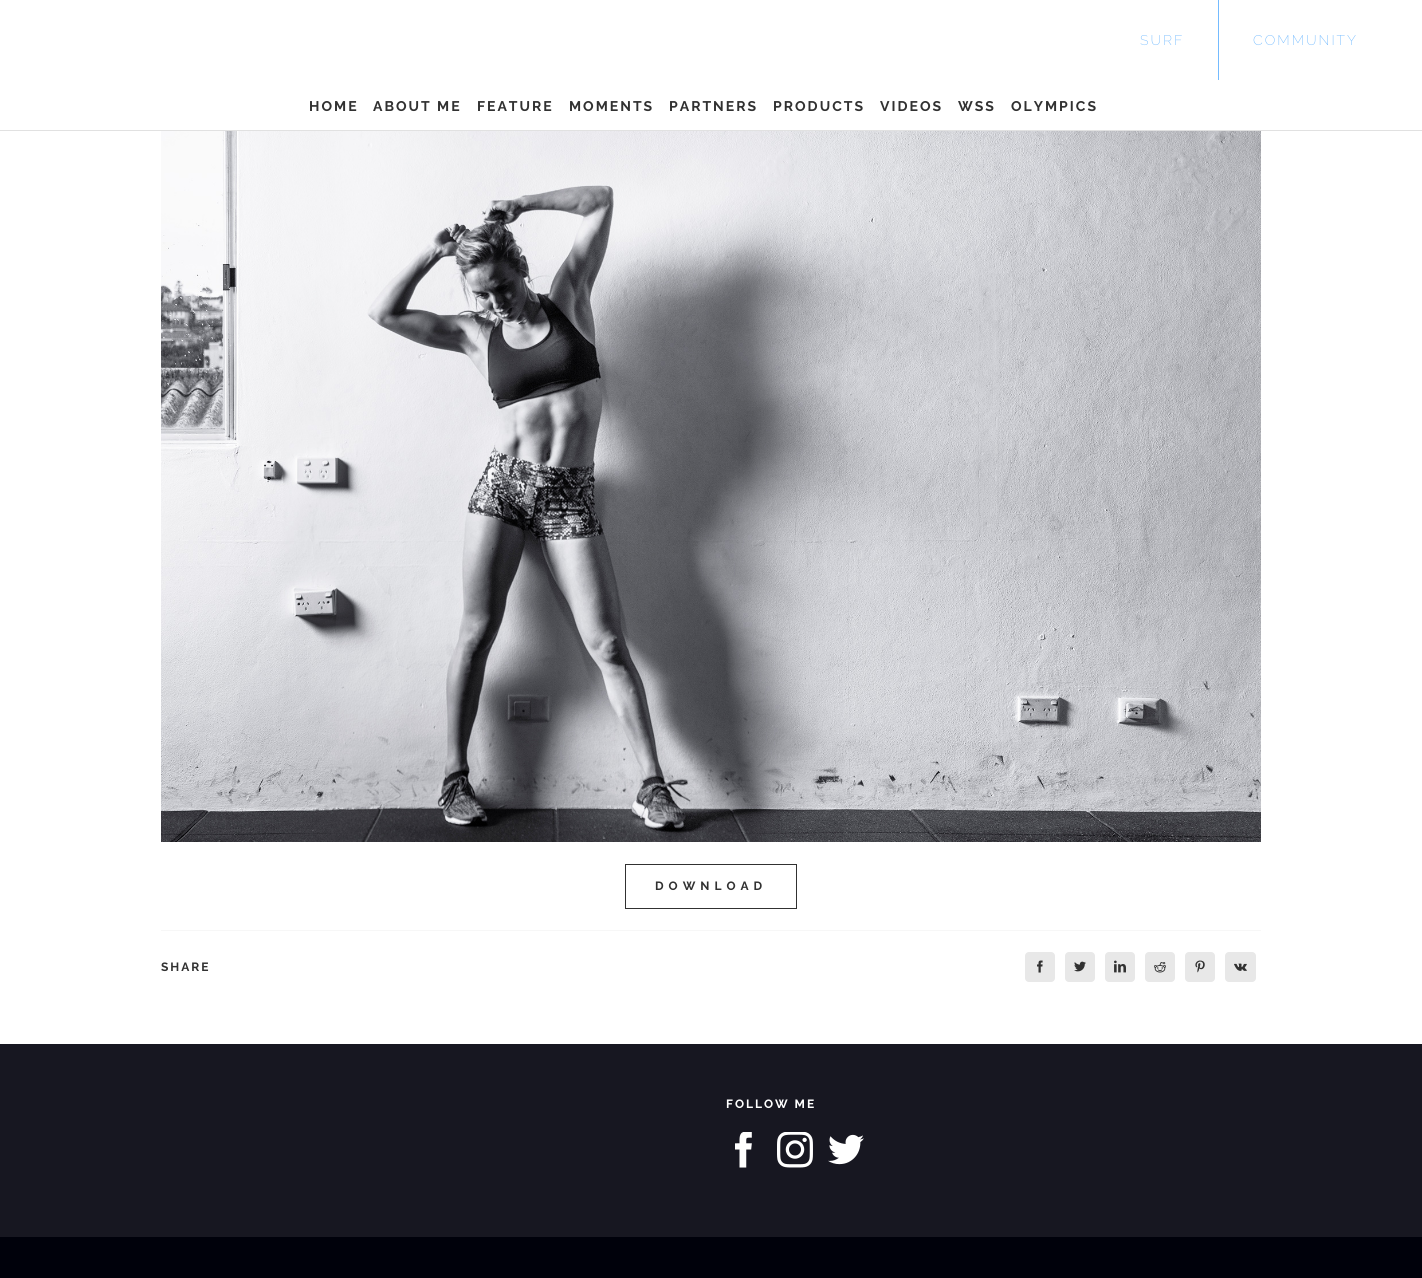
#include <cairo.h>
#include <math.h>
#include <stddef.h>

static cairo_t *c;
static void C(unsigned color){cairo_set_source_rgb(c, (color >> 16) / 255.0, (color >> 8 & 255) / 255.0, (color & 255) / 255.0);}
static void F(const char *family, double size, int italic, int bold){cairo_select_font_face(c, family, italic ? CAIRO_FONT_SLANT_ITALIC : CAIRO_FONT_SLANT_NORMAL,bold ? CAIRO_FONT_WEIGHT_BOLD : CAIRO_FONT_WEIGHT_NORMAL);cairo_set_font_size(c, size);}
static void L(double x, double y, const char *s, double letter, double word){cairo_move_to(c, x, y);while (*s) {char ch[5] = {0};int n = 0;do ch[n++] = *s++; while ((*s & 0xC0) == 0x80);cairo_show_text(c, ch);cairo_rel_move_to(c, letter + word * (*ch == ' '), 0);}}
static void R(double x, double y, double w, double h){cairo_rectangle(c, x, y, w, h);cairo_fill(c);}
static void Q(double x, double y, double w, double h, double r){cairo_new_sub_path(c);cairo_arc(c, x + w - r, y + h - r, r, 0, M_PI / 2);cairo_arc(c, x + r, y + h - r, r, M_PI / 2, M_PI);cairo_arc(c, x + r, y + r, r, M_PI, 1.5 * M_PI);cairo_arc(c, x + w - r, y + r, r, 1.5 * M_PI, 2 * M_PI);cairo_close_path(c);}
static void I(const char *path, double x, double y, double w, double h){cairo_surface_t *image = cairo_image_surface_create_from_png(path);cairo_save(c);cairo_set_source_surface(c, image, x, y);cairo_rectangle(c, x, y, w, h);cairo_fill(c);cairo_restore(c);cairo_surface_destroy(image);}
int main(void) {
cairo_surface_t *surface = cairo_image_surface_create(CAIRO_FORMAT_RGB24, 1422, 1278);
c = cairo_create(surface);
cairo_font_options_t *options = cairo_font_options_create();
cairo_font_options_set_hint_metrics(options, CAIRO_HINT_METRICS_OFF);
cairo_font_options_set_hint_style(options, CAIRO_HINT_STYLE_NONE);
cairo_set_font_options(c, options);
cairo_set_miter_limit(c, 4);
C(0xffffff);
cairo_paint(c);
F("Raleway ExtraLight",14,0,0);
C(0x74bbff);
L(1140,45,"SURF",2,0);
R(1218,0,1,80);
L(1253,45,"COMMUNITY",2,0);
C(0xe1e1e1);
R(0,130,1422,1);
F("Raleway",14,0,1);
C(0x313131);
L(309,111,"HOME",2,0);
L(373,111,"ABOUT ME",2,0);
L(477,111,"FEATURE",2,0);
L(569,111,"MOMENTS",2,0);
L(669,111,"PARTNERS",2,0);
L(773,111,"PRODUCTS",2,0);
L(880,111,"VIDEOS",2,0);
L(958,111,"WSS",2,0);
L(1011,111,"OLYMPICS",2,0);
I("1.png",161,131,1100,711);
cairo_rectangle(c,625.5,864.5,171,44);
cairo_set_line_width(c,1);
cairo_stroke(c);
F("Raleway",12,0,1);
L(655,890,"DOWNLOAD",5,0);
C(0xf7f7f7);
R(161,930,1100,1);
C(0x313131);
L(161,971,"SHARE",2,0);
C(0xe8e8e8);
Q(1025.5,952.5,29,29,3.5);
cairo_fill_preserve(c);
cairo_stroke(c);
I("2.png",1037,960,6,13);
Q(1065.5,952.5,29,29,3.5);
cairo_fill_preserve(c);
cairo_stroke(c);
I("3.png",1074,961,12,11);
Q(1105.5,952.5,29,29,3.5);
cairo_fill_preserve(c);
cairo_stroke(c);
I("4.png",1114,960,12,13);
Q(1145.5,952.5,29,29,3.5);
cairo_fill_preserve(c);
cairo_stroke(c);
I("5.png",1154,962,12,11);
Q(1185.5,952.5,29,29,3.5);
cairo_fill_preserve(c);
cairo_stroke(c);
I("6.png",1195,960,10,13);
Q(1225.5,952.5,30,29,3.5);
cairo_fill_preserve(c);
cairo_stroke(c);
I("7.png",1234,963,13,8);
C(0x171721);
R(0,1044,1422,193);
C(0xffffff);
L(726,1108,"FOLLOW ME",2,0);
I("8.png",735,1132,17,36);
I("9.png",777,1132,36,36);
I("10.png",828,1134,36,31);
C(0x00010b);
R(0,1237,1422,41);
cairo_surface_write_to_png(surface, "o.png");
cairo_font_options_destroy(options);
cairo_destroy(c);
cairo_surface_destroy(surface);
return 0;
}
